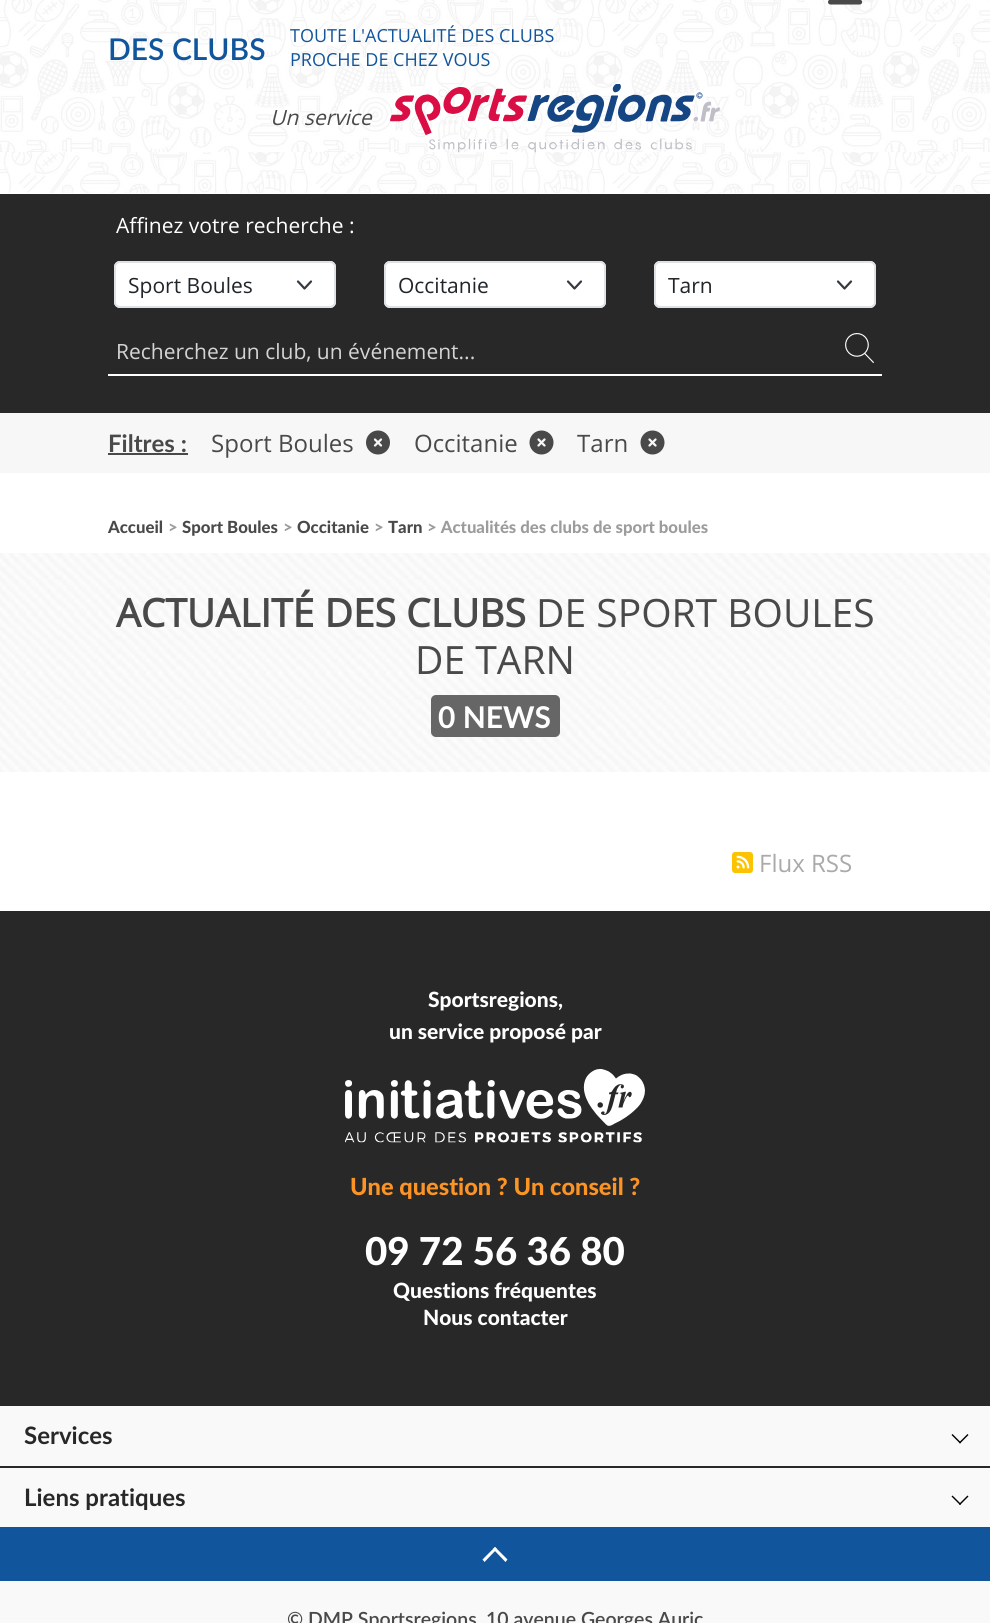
#include <cairo.h>
#include <math.h>
#include <stddef.h>

static cairo_t *c;
static void C(unsigned color){cairo_set_source_rgb(c, (color >> 16) / 255.0, (color >> 8 & 255) / 255.0, (color & 255) / 255.0);}
static void F(const char *family, double size, int italic, int bold){cairo_select_font_face(c, family, italic ? CAIRO_FONT_SLANT_ITALIC : CAIRO_FONT_SLANT_NORMAL,bold ? CAIRO_FONT_WEIGHT_BOLD : CAIRO_FONT_WEIGHT_NORMAL);cairo_set_font_size(c, size);}
static void T(double x, double y, const char *s){cairo_move_to(c, x, y);cairo_show_text(c, s);}
static void R(double x, double y, double w, double h){cairo_rectangle(c, x, y, w, h);cairo_fill(c);}
static void Q(double x, double y, double w, double h, double r){cairo_new_sub_path(c);cairo_arc(c, x + w - r, y + h - r, r, 0, M_PI / 2);cairo_arc(c, x + r, y + h - r, r, M_PI / 2, M_PI);cairo_arc(c, x + r, y + r, r, M_PI, 1.5 * M_PI);cairo_arc(c, x + w - r, y + r, r, 1.5 * M_PI, 2 * M_PI);cairo_close_path(c);}
static void I(const char *path, double x, double y, double w, double h){cairo_surface_t *image = cairo_image_surface_create_from_png(path);cairo_save(c);cairo_set_source_surface(c, image, x, y);cairo_rectangle(c, x, y, w, h);cairo_fill(c);cairo_restore(c);cairo_surface_destroy(image);}
int main(void) {
cairo_surface_t *surface = cairo_image_surface_create(CAIRO_FORMAT_RGB24, 990, 1623);
c = cairo_create(surface);
cairo_font_options_t *options = cairo_font_options_create();
cairo_font_options_set_hint_metrics(options, CAIRO_HINT_METRICS_OFF);
cairo_font_options_set_hint_style(options, CAIRO_HINT_STYLE_NONE);
cairo_set_font_options(c, options);
cairo_set_miter_limit(c, 4);
C(0xf9f9f9);
cairo_paint(c);
I("1.png",0,0,990,193);
I("2.png",828,0,35,5);
F("Lato SemiBold",30,0,0);
C(0x11559c);
T(108,60,"DES CLUBS");
F("Open Sans",18,0,0);
T(290,42,"TOUTE L'ACTUALITÉ DES CLUBS");
T(290,66,"PROCHE DE CHEZ VOUS");
F("Open Sans",21,1,0);
C(0x494949);
T(270,125,"Un service");
I("3.png",390,84,330,69);
C(0xffffff);
R(0,193,990,718);
C(0x282828);
R(0,194,990,219);
F("Open Sans",21,0,0);
C(0xffffff);
T(116,233,"Affinez votre recherche :");
Q(114,261,222,47,6);
cairo_fill(c);
cairo_new_path(c);
cairo_move_to(c,298,281.5);
cairo_line_to(c,304.5,288.5);
cairo_line_to(c,311,281.5);
C(0x343a40);
cairo_set_line_width(c,2.2);
cairo_set_line_cap(c,CAIRO_LINE_CAP_ROUND);
cairo_set_line_join(c,CAIRO_LINE_JOIN_ROUND);
cairo_stroke(c);
Q(115,262,220,45,5);
C(0xdee2e6);
cairo_set_line_width(c,2);
cairo_set_line_cap(c,CAIRO_LINE_CAP_BUTT);
cairo_set_line_join(c,CAIRO_LINE_JOIN_MITER);
cairo_stroke(c);
C(0x212529);
T(128,293,"Sport Boules");
C(0xffffff);
Q(384,261,222,47,6);
cairo_fill(c);
cairo_new_path(c);
cairo_move_to(c,568,281.5);
cairo_line_to(c,574.5,288.5);
cairo_line_to(c,581,281.5);
C(0x343a40);
cairo_set_line_width(c,2.2);
cairo_set_line_cap(c,CAIRO_LINE_CAP_ROUND);
cairo_set_line_join(c,CAIRO_LINE_JOIN_ROUND);
cairo_stroke(c);
Q(385,262,220,45,5);
C(0xdee2e6);
cairo_set_line_width(c,2);
cairo_set_line_cap(c,CAIRO_LINE_CAP_BUTT);
cairo_set_line_join(c,CAIRO_LINE_JOIN_MITER);
cairo_stroke(c);
C(0x212529);
T(398,293,"Occitanie");
C(0xffffff);
Q(654,261,222,47,6);
cairo_fill(c);
cairo_new_path(c);
cairo_move_to(c,838,281.5);
cairo_line_to(c,844.5,288.5);
cairo_line_to(c,851,281.5);
C(0x343a40);
cairo_set_line_width(c,2.2);
cairo_set_line_cap(c,CAIRO_LINE_CAP_ROUND);
cairo_set_line_join(c,CAIRO_LINE_JOIN_ROUND);
cairo_stroke(c);
Q(655,262,220,45,5);
C(0xdee2e6);
cairo_set_line_width(c,2);
cairo_set_line_cap(c,CAIRO_LINE_CAP_BUTT);
cairo_set_line_join(c,CAIRO_LINE_JOIN_MITER);
cairo_stroke(c);
C(0x212529);
T(668,293,"Tarn");
C(0xffffff);
R(108,374,774,2);
C(0xd4d4d4);
T(116,359,"Recherchez un club, un événement...");
I("4.png",845,333,29,30);
C(0xf7f7f7);
R(0,413,990,60);
F("Lato",24,0,1);
C(0x494949);
T(108,452,"Filtres :");
R(108,453,80,2);
F("Open Sans",24,0,0);
T(211,452,"Sport Boules");
I("5.png",366,430,24,25);
T(414,452,"Occitanie");
I("6.png",529,430,25,25);
T(577,452,"Tarn");
I("6.png",640,430,25,25);
F("Lato Black",16.75,0,0);
T(108,533,"Accueil");
C(0x9c9c9c);
T(168,533,">");
C(0x494949);
T(182,533,"Sport Boules");
C(0x9c9c9c);
T(283,533,">");
C(0x494949);
T(297,533,"Occitanie");
C(0x9c9c9c);
T(374,533,">");
C(0x494949);
T(388,533,"Tarn");
C(0x9c9c9c);
T(427,533,"> Actualités des clubs de sport boules");
I("7.png",0,553,990,219);
F("Open Sans",39,0,1);
C(0x494949);
T(116,627,"ACTUALITÉ DES CLUBS");
F("Open Sans",39,0,0);
T(536,627,"DE SPORT BOULES");
T(415,674,"DE TARN");
C(0x666666);
Q(431,695,129,42,5);
cairo_fill(c);
F("Lato",30,0,1);
C(0xffffff);
T(438,728,"0 NEWS");
I("8.png",732,852,21,21);
F("Open Sans",24,0,0);
C(0xaaaaaa);
T(759,872,"Flux RSS");
C(0x282828);
R(0,911,990,495);
F("Lato Black",21,0,0);
C(0xffffff);
T(428,1007,"Sportsregions,");
T(389,1039,"un service proposé par");
I("9.png",345,1069,300,74);
F("Lato Black",23.6,0,0);
C(0xfc9425);
T(350,1195,"Une question ? Un conseil ?");
F("Lato Black",38.5,0,0);
C(0xffffff);
T(365,1265,"09 72 56 36 80");
F("Lato Black",21,0,0);
T(393,1298,"Questions fréquentes");
T(423,1325,"Nous contacter");
F("Lato",24,0,1);
C(0x282828);
T(24,1444,"Services");
C(0x000000);
cairo_new_path(c);
cairo_move_to(c,960,1443.5);
cairo_line_to(c,951.5,1435);
cairo_line_to(c,952.5,1434);
cairo_line_to(c,961,1442.5);
cairo_close_path(c);
cairo_fill(c);
cairo_new_path(c);
cairo_move_to(c,960,1443.5);
cairo_line_to(c,959,1442.5);
cairo_line_to(c,967.5,1434);
cairo_line_to(c,968.5,1435);
cairo_close_path(c);
cairo_fill(c);
C(0x282828);
R(0,1466,990,2);
T(24,1506,"Liens pratiques");
C(0x000000);
cairo_new_path(c);
cairo_move_to(c,960,1505);
cairo_line_to(c,951.5,1496.5);
cairo_line_to(c,952.5,1495.5);
cairo_line_to(c,961,1504);
cairo_close_path(c);
cairo_fill(c);
cairo_new_path(c);
cairo_move_to(c,960,1505);
cairo_line_to(c,959,1504);
cairo_line_to(c,967.5,1495.5);
cairo_line_to(c,968.5,1496.5);
cairo_close_path(c);
cairo_fill(c);
C(0x11559c);
R(0,1527,990,54);
C(0xffffff);
cairo_new_path(c);
cairo_move_to(c,495,1547);
cairo_line_to(c,507.5,1559.5);
cairo_line_to(c,505.5,1562);
cairo_line_to(c,493,1549);
cairo_close_path(c);
cairo_fill(c);
cairo_new_path(c);
cairo_move_to(c,495,1547);
cairo_line_to(c,497,1549);
cairo_line_to(c,484.5,1562);
cairo_line_to(c,482.5,1559.5);
cairo_close_path(c);
cairo_fill(c);
F("Lato SemiBold",19.5,0,0);
C(0x494949);
T(287,1626,"© DMP Sportsregions, 10 avenue Georges Auric");
cairo_surface_write_to_png(surface, "o.png");
cairo_font_options_destroy(options);
cairo_destroy(c);
cairo_surface_destroy(surface);
return 0;
}
